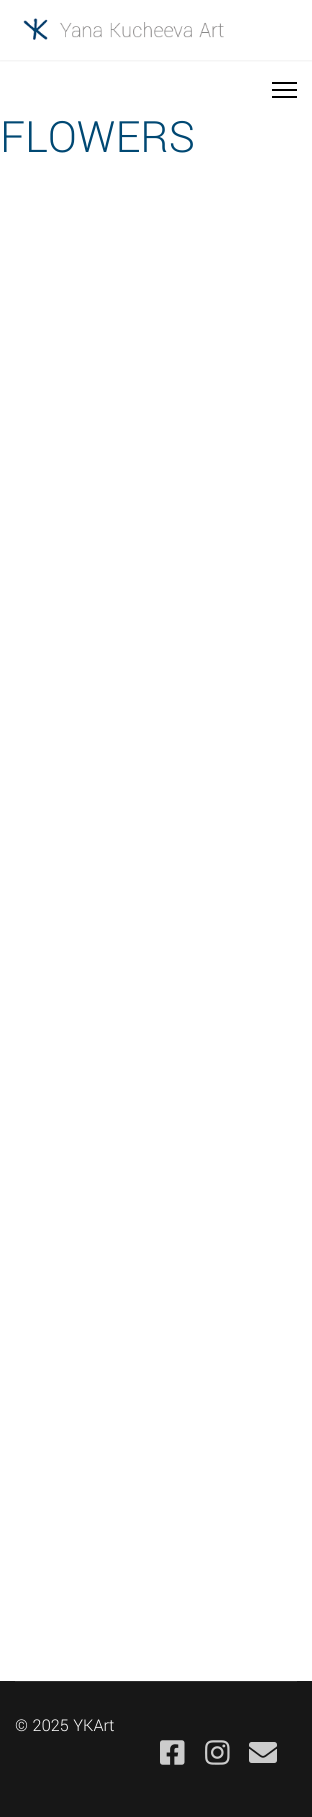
#include <cairo.h>
#include <math.h>
#include <stddef.h>

static cairo_t *c;
static void C(unsigned color){cairo_set_source_rgb(c, (color >> 16) / 255.0, (color >> 8 & 255) / 255.0, (color & 255) / 255.0);}
static void F(const char *family, double size, int italic, int bold){cairo_select_font_face(c, family, italic ? CAIRO_FONT_SLANT_ITALIC : CAIRO_FONT_SLANT_NORMAL,bold ? CAIRO_FONT_WEIGHT_BOLD : CAIRO_FONT_WEIGHT_NORMAL);cairo_set_font_size(c, size);}
static void T(double x, double y, const char *s){cairo_move_to(c, x, y);cairo_show_text(c, s);}
static void R(double x, double y, double w, double h){cairo_rectangle(c, x, y, w, h);cairo_fill(c);}
static void Q(double x, double y, double w, double h, double r){cairo_new_sub_path(c);cairo_arc(c, x + w - r, y + h - r, r, 0, M_PI / 2);cairo_arc(c, x + r, y + h - r, r, M_PI / 2, M_PI);cairo_arc(c, x + r, y + r, r, M_PI, 1.5 * M_PI);cairo_arc(c, x + w - r, y + r, r, 1.5 * M_PI, 2 * M_PI);cairo_close_path(c);}
static void S(double x, double y, double w, double h, double r, double blur, double alpha){cairo_push_group_with_content(c, CAIRO_CONTENT_ALPHA);cairo_set_operator(c, CAIRO_OPERATOR_SOURCE);for (int i = 15; i >= -15 && fmin(w, h) + blur * i / 3 > 0; i -= 2) {double e = blur * i / 6;cairo_set_source_rgba(c, 0, 0, 0, alpha * erfc((i - 1) / 8.5) / 2);Q(x - e, y - e, w + 2 * e, h + 2 * e, fmax(0, fmin(r + e + blur * .6, fmin(w, h) / 2 + e)));cairo_fill(c);}cairo_pattern_t *soft = cairo_pop_group(c);cairo_mask(c, soft);cairo_pattern_destroy(soft);}
static void I(const char *path, double x, double y, double w, double h){cairo_surface_t *image = cairo_image_surface_create_from_png(path);cairo_save(c);cairo_set_source_surface(c, image, x, y);cairo_rectangle(c, x, y, w, h);cairo_fill(c);cairo_restore(c);cairo_surface_destroy(image);}
int main(void) {
cairo_surface_t *surface = cairo_image_surface_create(CAIRO_FORMAT_RGB24, 312, 1817);
c = cairo_create(surface);
cairo_font_options_t *options = cairo_font_options_create();
cairo_font_options_set_hint_metrics(options, CAIRO_HINT_METRICS_OFF);
cairo_font_options_set_hint_style(options, CAIRO_HINT_STYLE_NONE);
cairo_set_font_options(c, options);
cairo_set_miter_limit(c, 4);
C(0xffffff);
cairo_paint(c);
cairo_save(c);
cairo_rectangle(c,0,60,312,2);
cairo_clip(c);
C(0x000000);
S(0,0,312,60,0,2,.1);
cairo_restore(c);
I("1.png",23,18,201,22);
C(0x000000);
R(272,82,25,2);
R(272,89,25,2);
R(272,96,25,2);
F("Yantramanav Light",48,0,0);
C(0x004873);
T(0,152,"FLOWERS");
C(0x171717);
R(0,1681,312,136);
C(0x2e2e2e);
R(15,1681,282,1);
F("Yantramanav Light",18,0,0);
C(0xffffff);
T(15,1731,"© 2025 YKArt");
I("2.png",160,1740,25,25);
I("3.png",205,1740,25,25);
I("4.png",249,1742,28,21);
cairo_surface_write_to_png(surface, "o.png");
cairo_font_options_destroy(options);
cairo_destroy(c);
cairo_surface_destroy(surface);
return 0;
}
